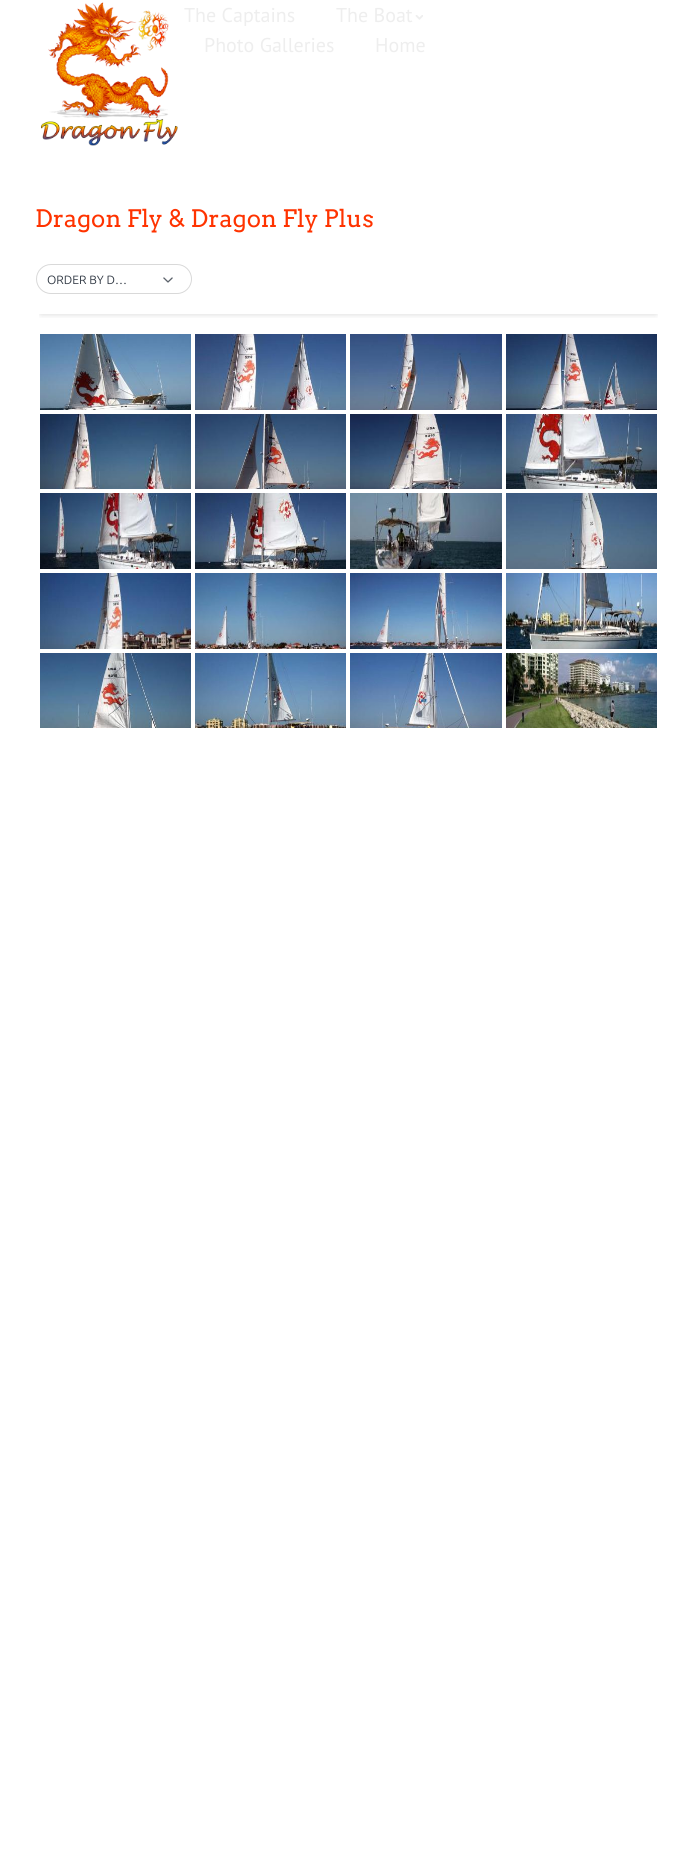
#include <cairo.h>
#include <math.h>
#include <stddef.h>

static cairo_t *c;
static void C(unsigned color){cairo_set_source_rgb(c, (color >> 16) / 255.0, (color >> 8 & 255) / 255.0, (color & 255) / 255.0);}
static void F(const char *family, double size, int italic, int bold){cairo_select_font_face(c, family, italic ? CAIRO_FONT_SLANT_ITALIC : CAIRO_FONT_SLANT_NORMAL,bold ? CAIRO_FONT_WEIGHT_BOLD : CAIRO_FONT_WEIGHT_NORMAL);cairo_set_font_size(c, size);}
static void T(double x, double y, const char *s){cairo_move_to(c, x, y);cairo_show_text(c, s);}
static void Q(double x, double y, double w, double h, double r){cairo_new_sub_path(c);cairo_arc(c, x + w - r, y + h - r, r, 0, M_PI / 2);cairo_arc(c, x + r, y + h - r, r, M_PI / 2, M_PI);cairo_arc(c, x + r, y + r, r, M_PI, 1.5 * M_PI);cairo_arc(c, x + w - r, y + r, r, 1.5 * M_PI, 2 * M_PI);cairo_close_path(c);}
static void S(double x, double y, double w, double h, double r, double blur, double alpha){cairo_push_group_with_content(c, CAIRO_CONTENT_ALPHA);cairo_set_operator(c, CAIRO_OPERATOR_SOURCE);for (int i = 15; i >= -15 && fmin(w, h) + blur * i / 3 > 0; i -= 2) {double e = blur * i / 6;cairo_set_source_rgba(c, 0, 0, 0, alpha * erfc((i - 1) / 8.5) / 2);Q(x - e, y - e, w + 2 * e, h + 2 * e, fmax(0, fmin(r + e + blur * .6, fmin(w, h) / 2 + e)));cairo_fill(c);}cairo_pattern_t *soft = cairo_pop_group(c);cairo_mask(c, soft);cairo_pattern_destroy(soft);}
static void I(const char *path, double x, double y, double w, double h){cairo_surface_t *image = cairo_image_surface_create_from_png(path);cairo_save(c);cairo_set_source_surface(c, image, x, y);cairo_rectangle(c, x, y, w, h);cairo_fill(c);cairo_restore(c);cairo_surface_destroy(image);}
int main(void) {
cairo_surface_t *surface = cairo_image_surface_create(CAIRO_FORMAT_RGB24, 697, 1859);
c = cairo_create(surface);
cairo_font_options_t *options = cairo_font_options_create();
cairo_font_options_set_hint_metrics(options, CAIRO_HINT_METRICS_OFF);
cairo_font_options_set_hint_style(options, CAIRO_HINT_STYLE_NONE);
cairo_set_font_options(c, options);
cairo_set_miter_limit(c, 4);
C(0xffffff);
cairo_paint(c);
I("1.png",40,2,138,144);
F("PT Sans",20,0,0);
C(0xeeeeee);
T(184,22,"The Captains");
T(336,22,"The Boat");
I("2.png",415,15,8,5);
T(204,52,"Photo Galleries");
T(375,52,"Home");
F("Arvo",24,0,0);
C(0xff3300);
T(35,227,"Dragon Fly & Dragon Fly Plus");
cairo_save(c);
cairo_rectangle(c,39,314,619,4);
cairo_clip(c);
C(0x000000);
S(41,274,615,40,0,3.5,.16);
cairo_restore(c);
Q(36.5,264.5,155,29,14.5);
C(0xd9d9d9);
cairo_set_line_width(c,1);
cairo_stroke(c);
F("Ubuntu",12,0,0);
C(0x323a45);
T(47,284,"ORDER BY D…");
I("3.png",163,277,10,6);
I("4.png",40,334,151,76);
I("5.png",195,334,151,76);
I("6.png",350,334,152,76);
I("7.png",506,334,151,76);
I("8.png",40,414,151,75);
I("9.png",195,414,151,75);
I("10.png",350,414,152,75);
I("11.png",506,414,151,75);
I("12.png",40,493,151,76);
I("13.png",195,493,151,76);
I("14.png",350,493,152,76);
I("15.png",506,493,151,76);
I("16.png",40,573,151,76);
I("17.png",195,573,151,76);
I("18.png",350,573,152,76);
I("19.png",506,573,151,76);
I("20.png",40,653,151,75);
I("21.png",195,653,151,75);
I("22.png",350,653,152,75);
I("23.png",506,653,151,75);
cairo_surface_write_to_png(surface, "o.png");
cairo_font_options_destroy(options);
cairo_destroy(c);
cairo_surface_destroy(surface);
return 0;
}
